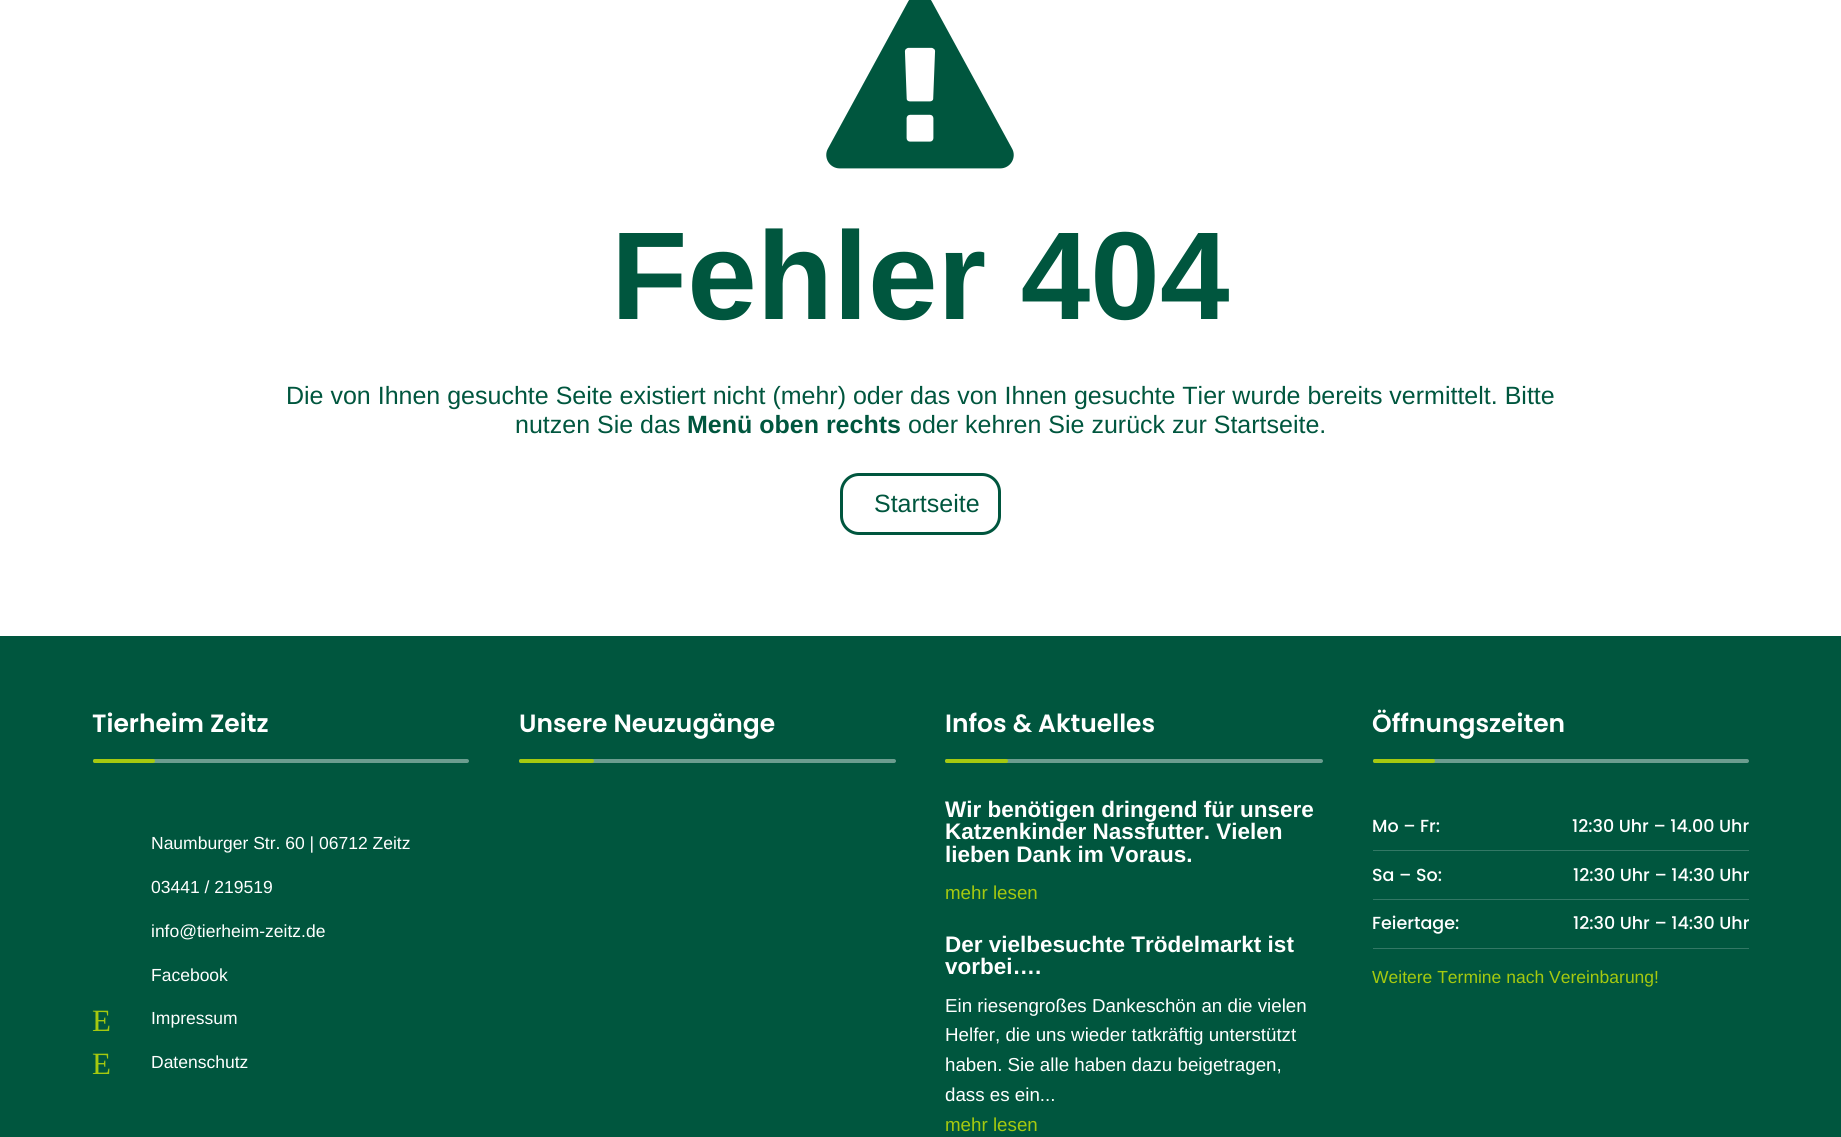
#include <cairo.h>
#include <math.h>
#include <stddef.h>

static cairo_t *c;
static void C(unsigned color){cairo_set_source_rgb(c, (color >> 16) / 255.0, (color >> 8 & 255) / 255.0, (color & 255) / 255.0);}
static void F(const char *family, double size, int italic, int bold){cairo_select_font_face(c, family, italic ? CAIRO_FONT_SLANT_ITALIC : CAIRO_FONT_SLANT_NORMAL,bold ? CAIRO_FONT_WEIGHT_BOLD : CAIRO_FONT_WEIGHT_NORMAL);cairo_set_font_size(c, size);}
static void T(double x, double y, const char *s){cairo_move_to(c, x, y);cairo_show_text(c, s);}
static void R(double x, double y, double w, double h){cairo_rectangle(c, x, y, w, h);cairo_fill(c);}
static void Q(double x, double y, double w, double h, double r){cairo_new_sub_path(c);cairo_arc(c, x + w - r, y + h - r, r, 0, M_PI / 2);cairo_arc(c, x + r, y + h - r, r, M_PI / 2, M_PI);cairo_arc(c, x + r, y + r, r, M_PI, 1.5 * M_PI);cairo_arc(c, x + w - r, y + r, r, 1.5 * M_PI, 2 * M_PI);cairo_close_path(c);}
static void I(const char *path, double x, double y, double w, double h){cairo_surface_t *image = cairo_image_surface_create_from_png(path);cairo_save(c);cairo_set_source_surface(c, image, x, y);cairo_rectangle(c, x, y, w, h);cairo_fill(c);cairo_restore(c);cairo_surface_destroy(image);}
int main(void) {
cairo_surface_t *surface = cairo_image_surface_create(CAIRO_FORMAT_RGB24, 1841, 1137);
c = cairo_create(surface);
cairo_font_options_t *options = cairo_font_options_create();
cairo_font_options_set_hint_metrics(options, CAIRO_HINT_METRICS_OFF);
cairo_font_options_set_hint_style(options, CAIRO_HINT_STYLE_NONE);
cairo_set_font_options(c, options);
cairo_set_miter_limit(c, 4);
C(0xffffff);
cairo_paint(c);
I("1.png",826,0,188,169);
F("Liberation Sans",125,0,1);
C(0x00563e);
T(611,319,"Fehler 404");
F("Liberation Sans",25,0,0);
T(286,404,"Die von Ihnen gesuchte Seite existiert nicht (mehr) oder das von Ihnen gesuchte Tier wurde bereits vermittelt. Bitte");
T(515,433,"nutzen Sie das");
F("Liberation Sans",25,0,1);
T(687,433,"Menü oben rechts");
F("Liberation Sans",25,0,0);
T(908,433,"oder kehren Sie zurück zur Startseite.");
Q(841.5,474.5,158,59,17.5);
cairo_set_line_width(c,3);
cairo_stroke(c);
T(874,512,"Startseite");
R(0,636,1841,501);
F("Poppins SemiBold",25,0,0);
C(0xffffff);
T(92,732,"Tierheim Zeitz");
C(0x6b9d8f);
Q(93,759,376,4,2);
cairo_fill(c);
C(0xa5c90f);
Q(93,759,62,4,2);
cairo_fill(c);
F("Liberation Sans",17.5,0,0);
C(0xffffff);
T(151,849,"Naumburger Str. 60 | 06712 Zeitz");
T(151,893,"03441 / 219519");
T(151,937,"info@tierheim-zeitz.de");
T(151,981,"Facebook");
F("Liberation Serif",31,0,0);
C(0xa5c90f);
T(92,1031,"E");
F("Liberation Sans",17.5,0,0);
C(0xffffff);
T(151,1024,"Impressum");
F("Liberation Serif",31,0,0);
C(0xa5c90f);
T(92,1074,"E");
F("Liberation Sans",17.5,0,0);
C(0xffffff);
T(151,1068,"Datenschutz");
F("Poppins SemiBold",25,0,0);
T(519,732,"Unsere Neuzugänge");
C(0x6b9d8f);
Q(519,759,377,4,2);
cairo_fill(c);
C(0xa5c90f);
Q(519,759,75,4,2);
cairo_fill(c);
C(0xffffff);
T(945,732,"Infos & Aktuelles");
C(0x6b9d8f);
Q(945,759,378,4,2);
cairo_fill(c);
C(0xa5c90f);
Q(945,759,63,4,2);
cairo_fill(c);
F("Liberation Sans",22.5,0,1);
C(0xffffff);
T(945,817,"Wir benötigen dringend für unsere");
T(945,839,"Katzenkinder Nassfutter. Vielen");
T(945,862,"lieben Dank im Voraus.");
F("Liberation Sans",18.75,0,0);
C(0xa5c90f);
T(945,899,"mehr lesen");
F("Liberation Sans",22.5,0,1);
C(0xffffff);
T(945,952,"Der vielbesuchte Trödelmarkt ist");
T(945,974,"vorbei….");
F("Liberation Sans",18.75,0,0);
T(945,1012,"Ein riesengroßes Dankeschön an die vielen");
T(945,1041,"Helfer, die uns wieder tatkräftig unterstützt");
T(945,1071,"haben. Sie alle haben dazu beigetragen,");
T(945,1101,"dass es ein...");
C(0xa5c90f);
T(945,1131,"mehr lesen");
F("Poppins SemiBold",25,0,0);
C(0xffffff);
T(1372,732,"Öffnungszeiten");
C(0x6b9d8f);
Q(1373,759,376,4,2);
cairo_fill(c);
C(0xa5c90f);
Q(1373,759,62,4,2);
cairo_fill(c);
C(0x337865);
R(1373,850,376,1);
F("Poppins Medium",17.5,0,0);
C(0xffffff);
T(1372,832,"Mo – Fr:");
T(1572,832,"12:30 Uhr – 14.00 Uhr");
C(0x337865);
R(1373,899,376,1);
C(0xffffff);
T(1372,881,"Sa – So:");
T(1573,881,"12:30 Uhr – 14:30 Uhr");
C(0x337865);
R(1373,948,376,1);
C(0xffffff);
T(1372,929,"Feiertage:");
T(1573,929,"12:30 Uhr – 14:30 Uhr");
F("Liberation Sans",17.5,0,0);
C(0xa5c90f);
T(1372,983,"Weitere Termine nach Vereinbarung!");
cairo_surface_write_to_png(surface, "o.png");
cairo_font_options_destroy(options);
cairo_destroy(c);
cairo_surface_destroy(surface);
return 0;
}
